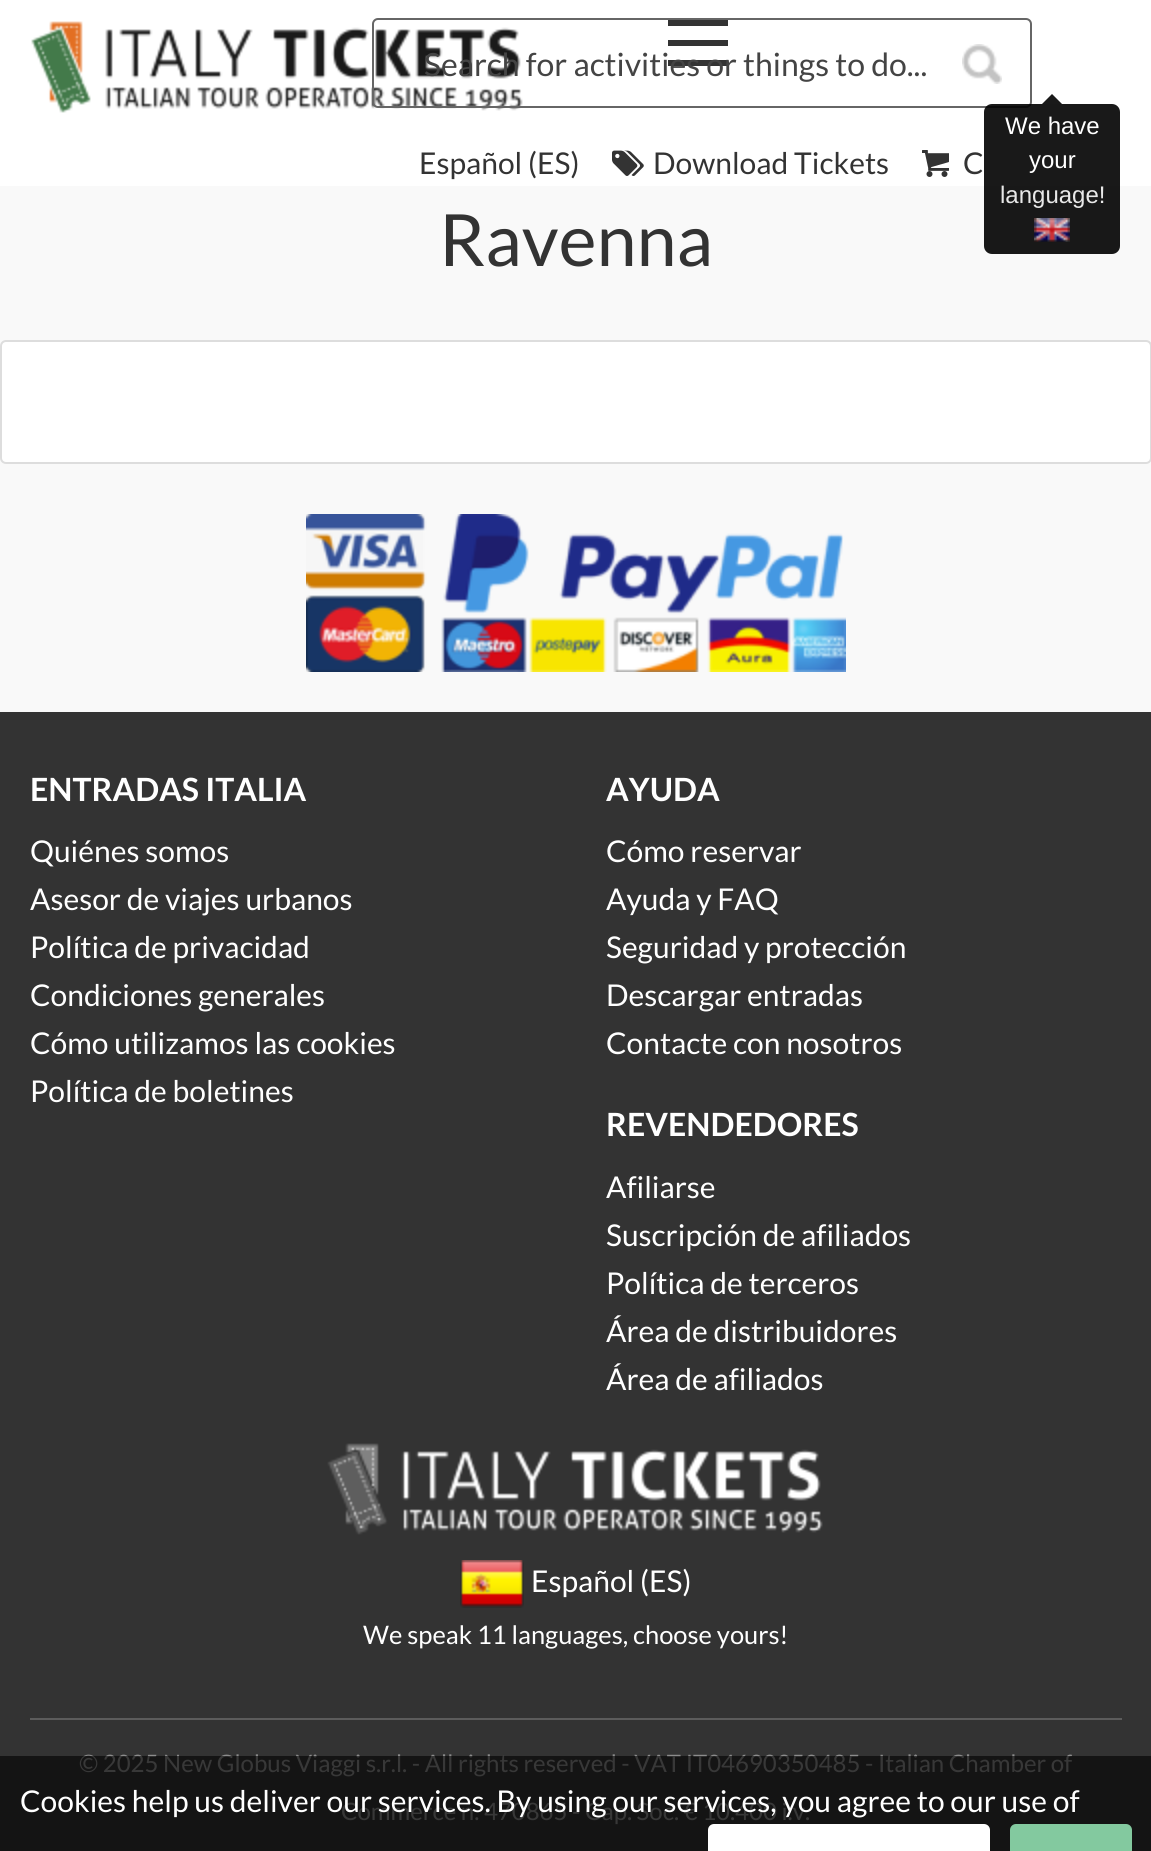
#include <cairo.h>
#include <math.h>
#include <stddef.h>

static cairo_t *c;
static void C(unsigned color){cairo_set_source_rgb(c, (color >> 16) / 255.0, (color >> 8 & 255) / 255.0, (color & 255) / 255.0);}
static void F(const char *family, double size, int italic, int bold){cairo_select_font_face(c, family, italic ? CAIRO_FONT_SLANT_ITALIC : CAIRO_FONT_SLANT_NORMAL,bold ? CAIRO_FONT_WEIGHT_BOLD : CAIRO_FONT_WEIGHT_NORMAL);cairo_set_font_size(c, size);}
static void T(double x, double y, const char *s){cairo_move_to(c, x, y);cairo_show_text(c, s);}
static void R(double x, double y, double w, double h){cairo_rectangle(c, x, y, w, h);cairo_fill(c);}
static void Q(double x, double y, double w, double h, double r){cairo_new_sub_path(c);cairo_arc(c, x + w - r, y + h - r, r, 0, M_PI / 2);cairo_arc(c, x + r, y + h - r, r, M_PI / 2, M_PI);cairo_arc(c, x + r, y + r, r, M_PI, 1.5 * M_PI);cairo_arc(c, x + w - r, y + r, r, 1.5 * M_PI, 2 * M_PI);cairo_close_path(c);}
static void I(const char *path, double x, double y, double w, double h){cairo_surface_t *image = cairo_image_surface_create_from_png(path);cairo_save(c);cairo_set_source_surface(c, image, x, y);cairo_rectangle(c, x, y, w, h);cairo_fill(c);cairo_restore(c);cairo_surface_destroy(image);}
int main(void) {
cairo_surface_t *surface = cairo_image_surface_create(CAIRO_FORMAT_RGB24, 1151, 1851);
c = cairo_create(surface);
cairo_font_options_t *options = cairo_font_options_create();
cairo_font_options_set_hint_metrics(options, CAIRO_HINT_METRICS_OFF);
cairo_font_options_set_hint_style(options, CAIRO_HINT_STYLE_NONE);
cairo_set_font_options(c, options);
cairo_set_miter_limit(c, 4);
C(0xf9f9f9);
cairo_paint(c);
C(0xffffff);
R(0,0,1151,186);
I("1.png",31,21,492,92);
C(0x333333);
R(668,40,60,6);
R(668,20,60,6);
R(668,60,60,6);
Q(373,19,658,88,5);
C(0x666666);
cairo_stroke(c);
F("Lato",32,0,0);
C(0x444444);
T(424,76,"Search for activities or things to do...");
I("2.png",962,44,40,40);
F("Lato",30,0,0);
C(0x333333);
T(419,174,"Español (ES)");
I("3.png",612,150,32,26);
T(653,174,"Download Tickets");
I("4.png",922,150,27,27);
T(963,174,"C");
C(0x1a1a1a);
cairo_new_path(c);
cairo_move_to(c,1062,104);
cairo_line_to(c,1042,104);
cairo_line_to(c,1052,94);
cairo_close_path(c);
cairo_fill(c);
cairo_set_source_rgba(c,0,0,0,0.9);
Q(984,104,136,150,8);
cairo_fill(c);
F("Liberation Sans",24,0,0);
C(0xffffff);
T(1005,134,"We have");
T(1029,168,"your");
C(0xe8e8e8);
T(1000,203,"language!");
I("5.png",1034,218,36,24);
F("Lato",72,0,0);
C(0x333333);
T(439,266,"Ravenna");
C(0xffffff);
Q(1,341,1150,122,5);
cairo_fill_preserve(c);
C(0xdddddd);
cairo_stroke(c);
I("6.png",306,514,540,158);
C(0x333333);
R(0,712,1151,1139);
F("Lato",32,0,1);
C(0xffffff);
T(30,801,"ENTRADAS ITALIA");
F("Lato",30,0,0);
T(30,862,"Quiénes somos");
T(30,910,"Asesor de viajes urbanos");
T(30,958,"Política de privacidad");
T(30,1006,"Condiciones generales");
T(30,1054,"Cómo utilizamos las cookies");
T(30,1102,"Política de boletines");
F("Lato",32,0,1);
T(606,801,"AYUDA");
F("Lato",30,0,0);
T(606,862,"Cómo reservar");
T(606,910,"Ayuda y FAQ");
T(606,958,"Seguridad y protección");
T(606,1006,"Descargar entradas");
T(606,1054,"Contacte con nosotros");
F("Lato",32,0,1);
T(606,1136,"REVENDEDORES");
F("Lato",30,0,0);
T(606,1198,"Afiliarse");
T(606,1246,"Suscripción de afiliados");
T(606,1294,"Política de terceros");
T(606,1342,"Área de distribuidores");
T(606,1390,"Área de afiliados");
I("7.png",327,1443,496,92);
I("8.png",460,1560,64,48);
T(531,1592,"Español (ES)");
F("Lato",25.5,0,0);
T(363,1644,"We speak 11 languages, choose yours!");
F("Lato",24,0,0);
C(0x8c8c8c);
T(79,1772,"© 2025 New Globus Viaggi s.r.l. - All rights reserved - VAT IT04690350485 - Italian Chamber of");
T(341,1820,"Commerce n. 470865 - Cap. Soc. € 10.400 i.v.");
cairo_set_source_rgba(c,0,0,0,0.6);
R(0,1756,1151,95);
F("Lato",30,0,0);
C(0xffffff);
T(20,1812,"Cookies help us deliver our services. By using our services, you agree to our use of");
Q(708,1824,282,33,6);
cairo_fill(c);
C(0x83c99f);
Q(1010,1824,122,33,6);
cairo_fill(c);
C(0x5c5c5c);
R(30,1718,1092,2);
cairo_surface_write_to_png(surface, "o.png");
cairo_font_options_destroy(options);
cairo_destroy(c);
cairo_surface_destroy(surface);
return 0;
}
